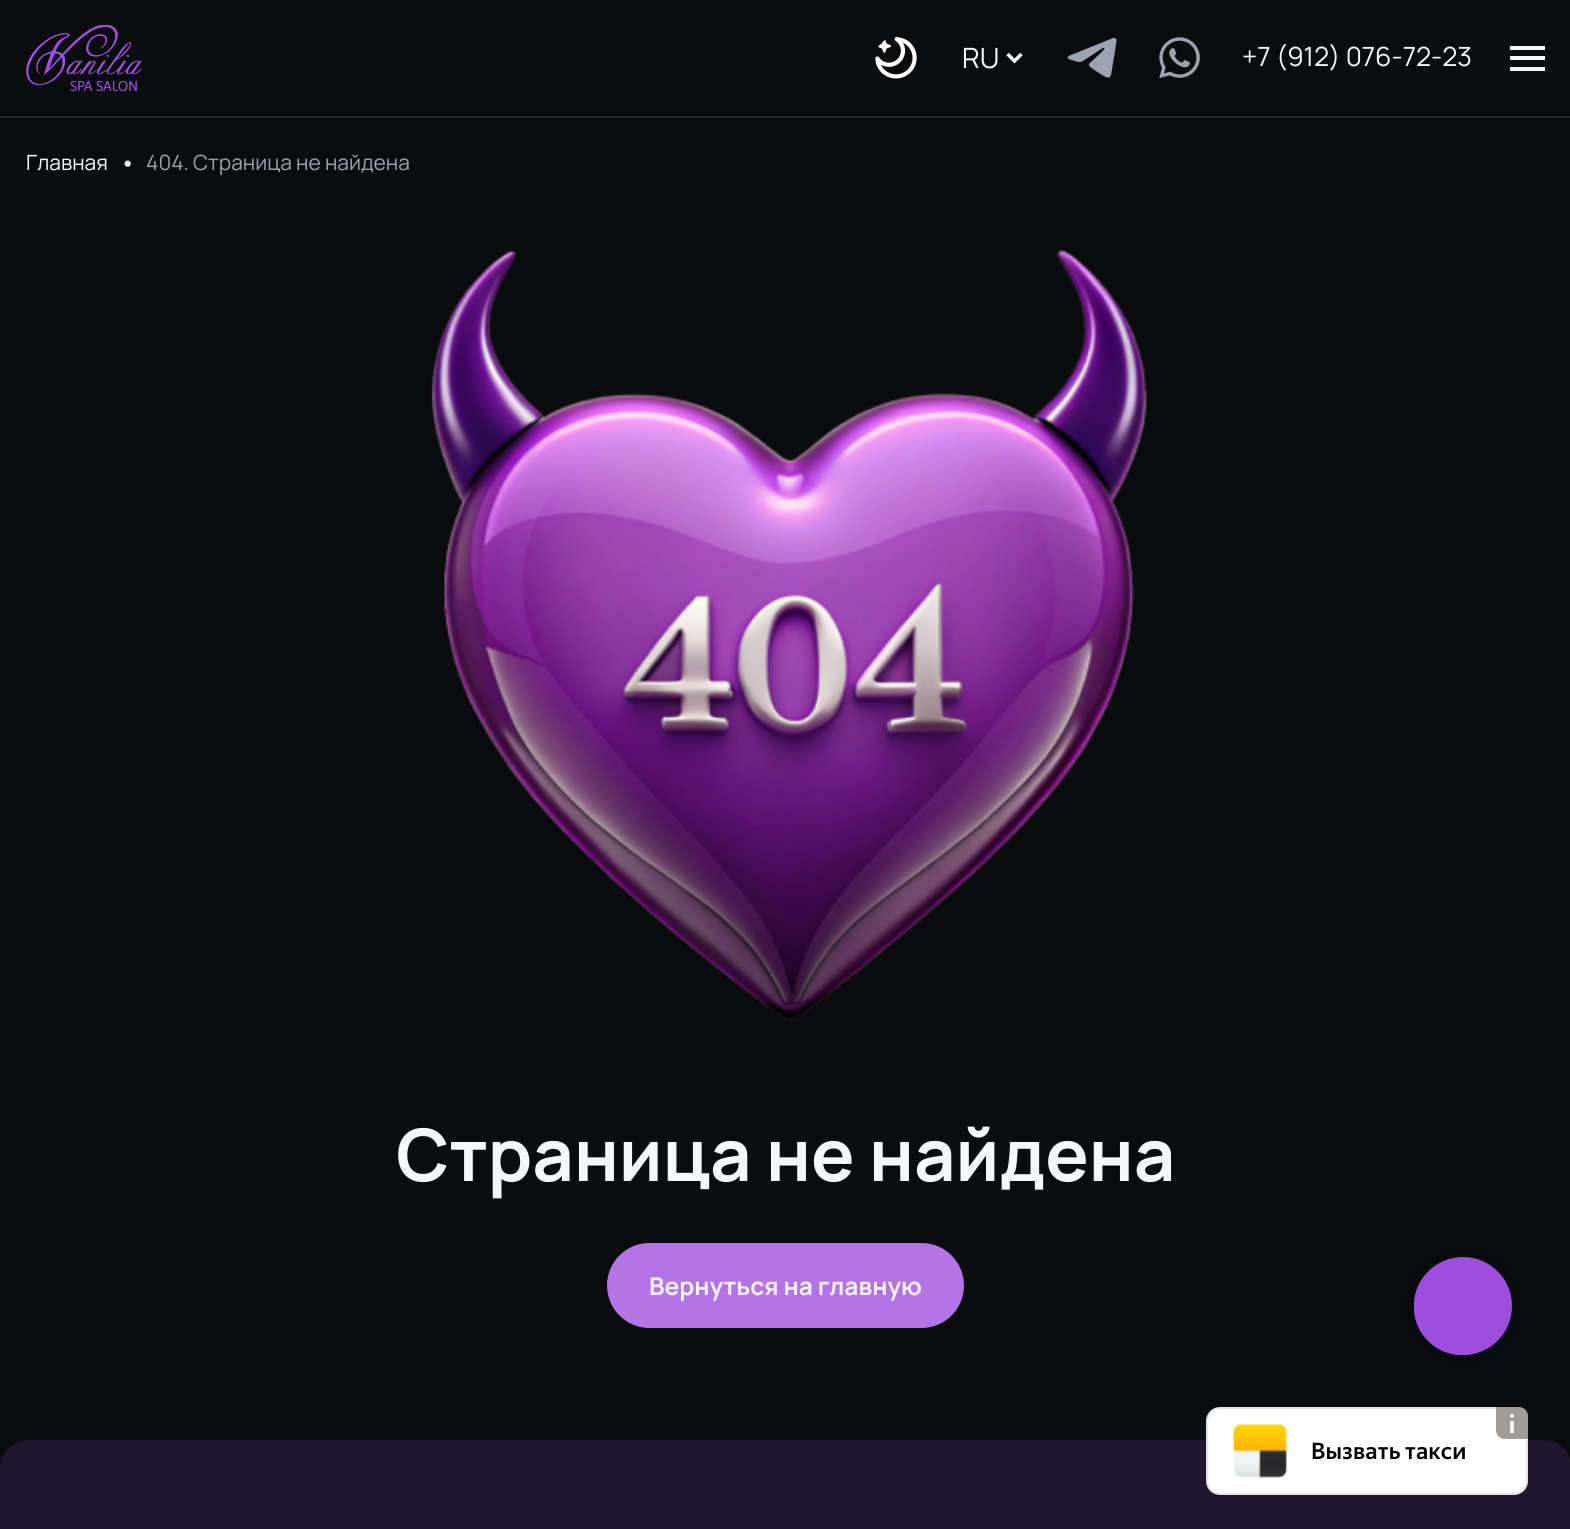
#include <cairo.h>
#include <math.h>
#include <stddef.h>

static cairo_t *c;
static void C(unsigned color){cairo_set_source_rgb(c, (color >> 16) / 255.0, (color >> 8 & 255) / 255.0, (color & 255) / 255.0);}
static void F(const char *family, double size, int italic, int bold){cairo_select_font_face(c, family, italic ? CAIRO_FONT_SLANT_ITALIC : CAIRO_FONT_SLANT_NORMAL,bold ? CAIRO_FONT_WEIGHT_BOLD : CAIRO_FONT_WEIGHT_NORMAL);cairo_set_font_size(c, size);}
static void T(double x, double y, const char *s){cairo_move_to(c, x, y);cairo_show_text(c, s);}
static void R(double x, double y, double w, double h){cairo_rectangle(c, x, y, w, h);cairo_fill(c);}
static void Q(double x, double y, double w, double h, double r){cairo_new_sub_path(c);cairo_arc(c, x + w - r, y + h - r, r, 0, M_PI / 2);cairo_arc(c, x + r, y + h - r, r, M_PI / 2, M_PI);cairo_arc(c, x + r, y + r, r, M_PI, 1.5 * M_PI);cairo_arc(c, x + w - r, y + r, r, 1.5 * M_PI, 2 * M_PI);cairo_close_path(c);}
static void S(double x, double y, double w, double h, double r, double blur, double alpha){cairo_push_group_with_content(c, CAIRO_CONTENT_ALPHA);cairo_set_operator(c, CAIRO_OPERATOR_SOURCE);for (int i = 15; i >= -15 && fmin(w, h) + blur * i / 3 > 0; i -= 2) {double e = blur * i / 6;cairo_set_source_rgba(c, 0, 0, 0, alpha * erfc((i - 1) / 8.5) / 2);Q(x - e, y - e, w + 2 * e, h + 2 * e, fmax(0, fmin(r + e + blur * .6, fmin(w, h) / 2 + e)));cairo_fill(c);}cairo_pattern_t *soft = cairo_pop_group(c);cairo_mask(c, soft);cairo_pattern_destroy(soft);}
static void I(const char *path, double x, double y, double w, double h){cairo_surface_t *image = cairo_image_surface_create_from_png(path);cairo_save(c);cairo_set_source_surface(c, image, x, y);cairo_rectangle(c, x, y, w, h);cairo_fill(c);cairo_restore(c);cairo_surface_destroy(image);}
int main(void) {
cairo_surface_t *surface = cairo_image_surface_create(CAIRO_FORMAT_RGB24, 1570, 1529);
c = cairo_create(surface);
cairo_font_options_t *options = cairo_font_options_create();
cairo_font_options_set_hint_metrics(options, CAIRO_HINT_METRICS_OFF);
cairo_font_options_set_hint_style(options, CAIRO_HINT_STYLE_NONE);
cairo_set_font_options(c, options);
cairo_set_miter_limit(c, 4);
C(0x0b0c0e);
cairo_paint(c);
I("1.png",26,25,116,66);
I("2.png",875,37,42,42);
cairo_new_path(c);
cairo_move_to(c,1007.5,54);
cairo_line_to(c,1014.5,61);
cairo_line_to(c,1021.5,54);
C(0xf6f7f8);
cairo_set_line_width(c,3.5);
cairo_stroke(c);
F("Manrope",28,0,0);
T(962,68,"RU");
I("3.png",1068,37,49,41);
I("4.png",1159,37,41,42);
F("Manrope",26.5,0,0);
T(1242,66,"+7 (912) 076-72-23");
R(1510,56,35,4);
R(1510,46,35,4);
R(1510,67,35,4);
F("Manrope",21,0,0);
T(26,170,"Главная");
F("Manrope",26.5,0,0);
T(119,172,"•");
F("Manrope",21,0,0);
C(0x9ba2b0);
T(146,170,"404. Страница не найдена");
C(0x22252b);
R(0,116,1570,2);
I("5.png",431,249,716,771);
F("Manrope",72.25,0,1);
C(0xf6f7f8);
T(396,1181,"Страница не найдена");
C(0xb375e5);
Q(607,1243,357,85,42.5);
cairo_fill(c);
F("Manrope",24.5,0,1);
C(0xf7f1fc);
T(649,1295,"Вернуться на главную");
Q(1415,1259,94,95,47);
C(0x9d4edd);
cairo_set_line_width(c,2);
cairo_stroke(c);
Q(1415,1259,94,95,47);
cairo_stroke(c);
C(0x21162d);
cairo_new_path(c);
cairo_move_to(c,28,1440);
cairo_line_to(c,1544,1440);
cairo_curve_to(c,1559.5,1440,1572,1452.5,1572,1468);
cairo_line_to(c,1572,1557);
cairo_line_to(c,0,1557);
cairo_line_to(c,0,1468);
cairo_curve_to(c,0,1452.5,12.5,1440,28,1440);
cairo_close_path(c);
cairo_fill(c);
C(0xffffff);
Q(1207,1408,320,86,13);
cairo_fill_preserve(c);
C(0xe2e4e7);
cairo_stroke(c);
C(0x9e9b98);
cairo_new_path(c);
cairo_move_to(c,1496,1407);
cairo_line_to(c,1519,1407);
cairo_curve_to(c,1524,1407,1528,1411,1528,1416);
cairo_line_to(c,1528,1439);
cairo_line_to(c,1505,1439);
cairo_curve_to(c,1500,1439,1496,1435,1496,1430);
cairo_close_path(c);
cairo_fill(c);
I("6.png",1510,1414,4,19);
I("7.png",1233,1424,54,54);
F("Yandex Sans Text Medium",22.75,0,0);
C(0x000000);
T(1311,1459,"Вызвать такси");
C(0x000000);
S(1414,1257,98,98,49,10.5,.2);
C(0x9d4edd);
cairo_arc(c,1463,1306,49,0,2 * M_PI);
cairo_fill(c);
cairo_surface_write_to_png(surface, "o.png");
cairo_font_options_destroy(options);
cairo_destroy(c);
cairo_surface_destroy(surface);
return 0;
}
